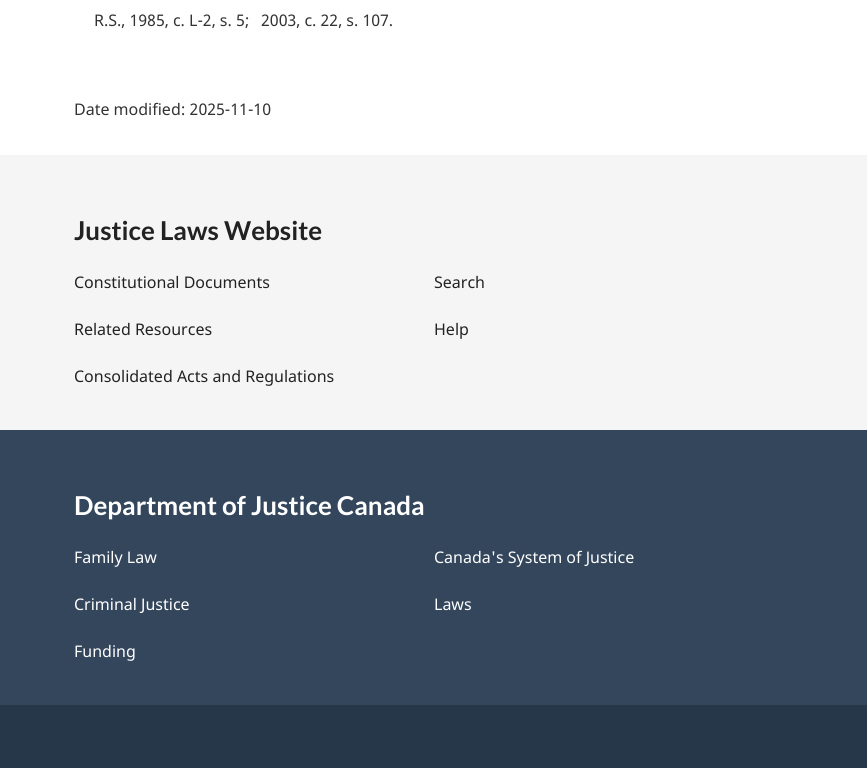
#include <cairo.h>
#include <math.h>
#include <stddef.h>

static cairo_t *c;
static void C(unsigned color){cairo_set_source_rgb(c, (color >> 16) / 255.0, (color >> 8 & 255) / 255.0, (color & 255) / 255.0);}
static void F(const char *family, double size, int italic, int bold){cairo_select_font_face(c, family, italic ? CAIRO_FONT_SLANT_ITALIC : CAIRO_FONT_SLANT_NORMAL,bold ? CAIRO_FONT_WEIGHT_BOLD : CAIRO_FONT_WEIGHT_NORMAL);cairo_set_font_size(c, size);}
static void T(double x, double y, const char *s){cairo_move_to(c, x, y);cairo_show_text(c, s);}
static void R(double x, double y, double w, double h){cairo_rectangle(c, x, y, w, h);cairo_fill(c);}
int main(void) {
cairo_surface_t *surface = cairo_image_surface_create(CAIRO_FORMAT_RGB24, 867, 768);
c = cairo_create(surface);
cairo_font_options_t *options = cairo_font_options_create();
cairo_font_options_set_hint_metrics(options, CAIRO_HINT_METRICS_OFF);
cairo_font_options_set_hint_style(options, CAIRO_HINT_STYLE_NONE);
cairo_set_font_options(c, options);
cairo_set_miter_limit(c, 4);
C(0xffffff);
cairo_paint(c);
F("Noto Sans",16,0,0);
C(0x333333);
T(94,26,"R.S., 1985, c. L-2, s. 5;");
T(261,26,"2003, c. 22, s. 107.");
T(74,115,"Date modified: 2025-11-10");
C(0xf5f5f5);
R(0,155,867,275);
F("Lato",26,0,1);
C(0x222222);
T(74,240,"Justice Laws Website");
F("Noto Sans",16,0,0);
T(74,288,"Constitutional Documents");
T(434,288,"Search");
T(74,335,"Related Resources");
T(434,335,"Help");
T(74,382,"Consolidated Acts and Regulations");
C(0x33465c);
R(0,430,867,275);
F("Lato",26,0,1);
C(0xffffff);
T(74,515,"Department of Justice Canada");
F("Noto Sans",16,0,0);
T(74,563,"Family Law");
T(434,563,"Canada's System of Justice");
T(74,610,"Criminal Justice");
T(434,610,"Laws");
T(74,657,"Funding");
C(0x26374a);
R(0,705,867,63);
cairo_surface_write_to_png(surface, "o.png");
cairo_font_options_destroy(options);
cairo_destroy(c);
cairo_surface_destroy(surface);
return 0;
}
